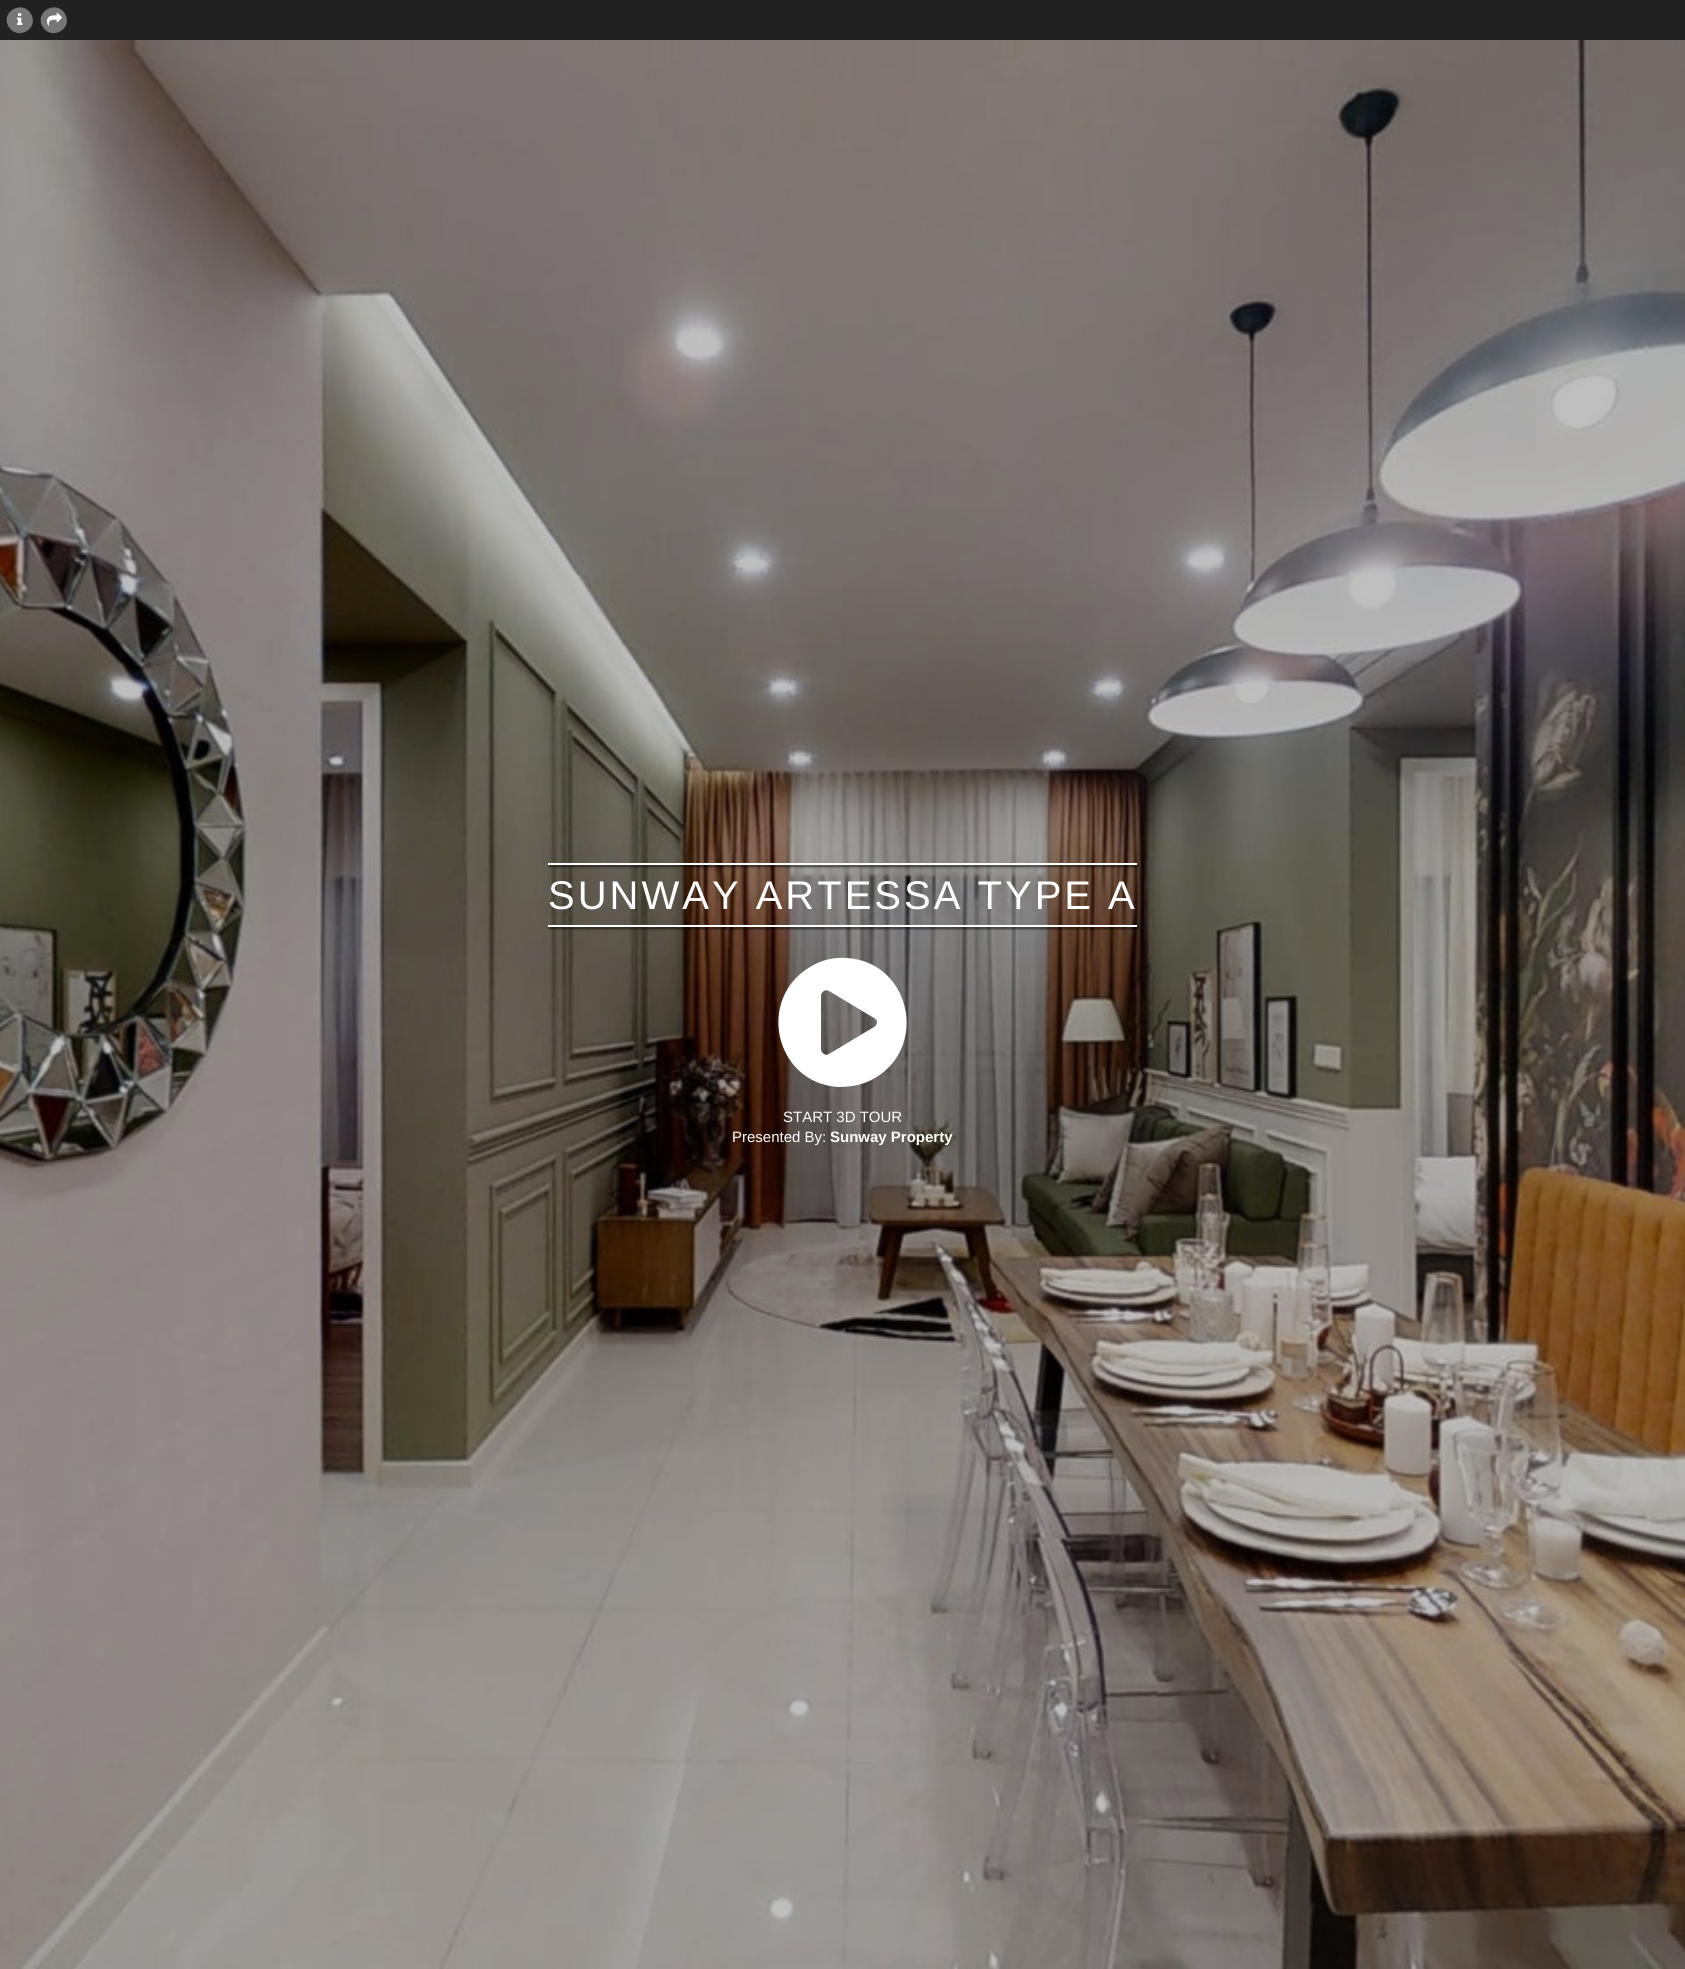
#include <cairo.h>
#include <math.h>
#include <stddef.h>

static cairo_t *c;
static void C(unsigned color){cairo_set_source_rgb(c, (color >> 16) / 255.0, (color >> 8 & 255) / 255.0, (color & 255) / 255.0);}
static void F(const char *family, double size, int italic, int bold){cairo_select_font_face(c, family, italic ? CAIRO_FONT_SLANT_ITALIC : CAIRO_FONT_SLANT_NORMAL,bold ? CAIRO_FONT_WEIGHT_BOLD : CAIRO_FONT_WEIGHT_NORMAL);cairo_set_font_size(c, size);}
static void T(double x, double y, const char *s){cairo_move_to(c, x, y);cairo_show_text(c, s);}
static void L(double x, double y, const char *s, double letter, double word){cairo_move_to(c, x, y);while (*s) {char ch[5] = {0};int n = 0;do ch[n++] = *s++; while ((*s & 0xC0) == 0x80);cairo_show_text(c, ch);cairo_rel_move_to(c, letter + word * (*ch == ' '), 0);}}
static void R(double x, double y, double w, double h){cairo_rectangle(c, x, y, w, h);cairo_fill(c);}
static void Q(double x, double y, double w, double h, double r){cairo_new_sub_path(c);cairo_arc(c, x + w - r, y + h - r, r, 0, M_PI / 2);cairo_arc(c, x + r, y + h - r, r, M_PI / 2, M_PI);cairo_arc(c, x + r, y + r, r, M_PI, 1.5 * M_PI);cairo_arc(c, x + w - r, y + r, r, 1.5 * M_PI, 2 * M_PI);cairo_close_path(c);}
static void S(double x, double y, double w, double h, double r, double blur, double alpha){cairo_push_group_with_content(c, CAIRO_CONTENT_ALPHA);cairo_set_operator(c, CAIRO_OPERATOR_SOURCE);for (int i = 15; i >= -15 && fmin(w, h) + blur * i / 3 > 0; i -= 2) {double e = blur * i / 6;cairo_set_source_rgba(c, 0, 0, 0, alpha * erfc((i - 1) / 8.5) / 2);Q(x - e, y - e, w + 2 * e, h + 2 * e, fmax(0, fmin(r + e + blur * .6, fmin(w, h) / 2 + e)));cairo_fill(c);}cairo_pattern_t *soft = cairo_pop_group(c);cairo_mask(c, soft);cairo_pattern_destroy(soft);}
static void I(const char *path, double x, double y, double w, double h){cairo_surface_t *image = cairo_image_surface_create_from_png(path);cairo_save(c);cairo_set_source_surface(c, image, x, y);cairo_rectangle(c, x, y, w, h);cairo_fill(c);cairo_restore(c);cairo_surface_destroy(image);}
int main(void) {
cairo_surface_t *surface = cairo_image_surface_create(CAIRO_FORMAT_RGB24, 1685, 1969);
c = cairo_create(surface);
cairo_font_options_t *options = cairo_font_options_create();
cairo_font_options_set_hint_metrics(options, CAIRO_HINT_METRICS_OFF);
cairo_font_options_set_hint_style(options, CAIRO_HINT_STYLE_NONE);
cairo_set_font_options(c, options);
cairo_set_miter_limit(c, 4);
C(0x212121);
cairo_paint(c);
C(0x777777);
cairo_new_path(c);
cairo_move_to(c,31,14);
cairo_curve_to(c,39.5,28.5,17.5,41.5,8.5,26.5);
cairo_curve_to(c,0,12,22.5,-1,31,14);
cairo_close_path(c);
cairo_fill(c);
I("1.png",17,13,6,12);
cairo_new_path(c);
cairo_move_to(c,65,14);
cairo_curve_to(c,73.5,28.5,51.5,41.5,42.5,26.5);
cairo_curve_to(c,34,12,56.5,-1,65,14);
cairo_close_path(c);
cairo_fill(c);
I("2.png",47,12,15,14);
I("3.png",0,40,1685,1929);
C(0x000000);
S(549,865,589,2,0,1,.6);
C(0xffffff);
R(548,863,589,2);
F("Liberation Sans",40,0,0);
L(548,909,"SUNWAY ARTESSA TYPE A",3,0);
C(0x000000);
S(549,927,589,2,0,1,.6);
C(0xffffff);
R(548,925,589,2);
cairo_new_path(c);
cairo_move_to(c,810,967);
cairo_curve_to(c,821,960,834,957,847,958);
cairo_curve_to(c,910,962,929,1046,875,1078);
cairo_curve_to(c,863,1085,851,1087,838,1087);
cairo_curve_to(c,775,1083,756,999,810,967);
cairo_close_path(c);
cairo_move_to(c,874,1027);
cairo_curve_to(c,876,1026,877,1024,877,1022);
cairo_curve_to(c,877,1020,876,1019,874,1018);
cairo_line_to(c,829,991);
cairo_curve_to(c,827,990,825,990,824,991);
cairo_curve_to(c,822,992,821,994,821,996);
cairo_line_to(c,821,1049);
cairo_curve_to(c,821,1051,822,1053,824,1054);
cairo_line_to(c,826,1055);
cairo_line_to(c,829,1054);
cairo_close_path(c);
cairo_fill(c);
F("Liberation Sans",15,0,0);
T(783,1122,"START 3D TOUR");
T(732,1142,"Presented By:");
F("Liberation Sans",15,0,1);
T(830,1142,"Sunway Property");
cairo_surface_write_to_png(surface, "o.png");
cairo_font_options_destroy(options);
cairo_destroy(c);
cairo_surface_destroy(surface);
return 0;
}
